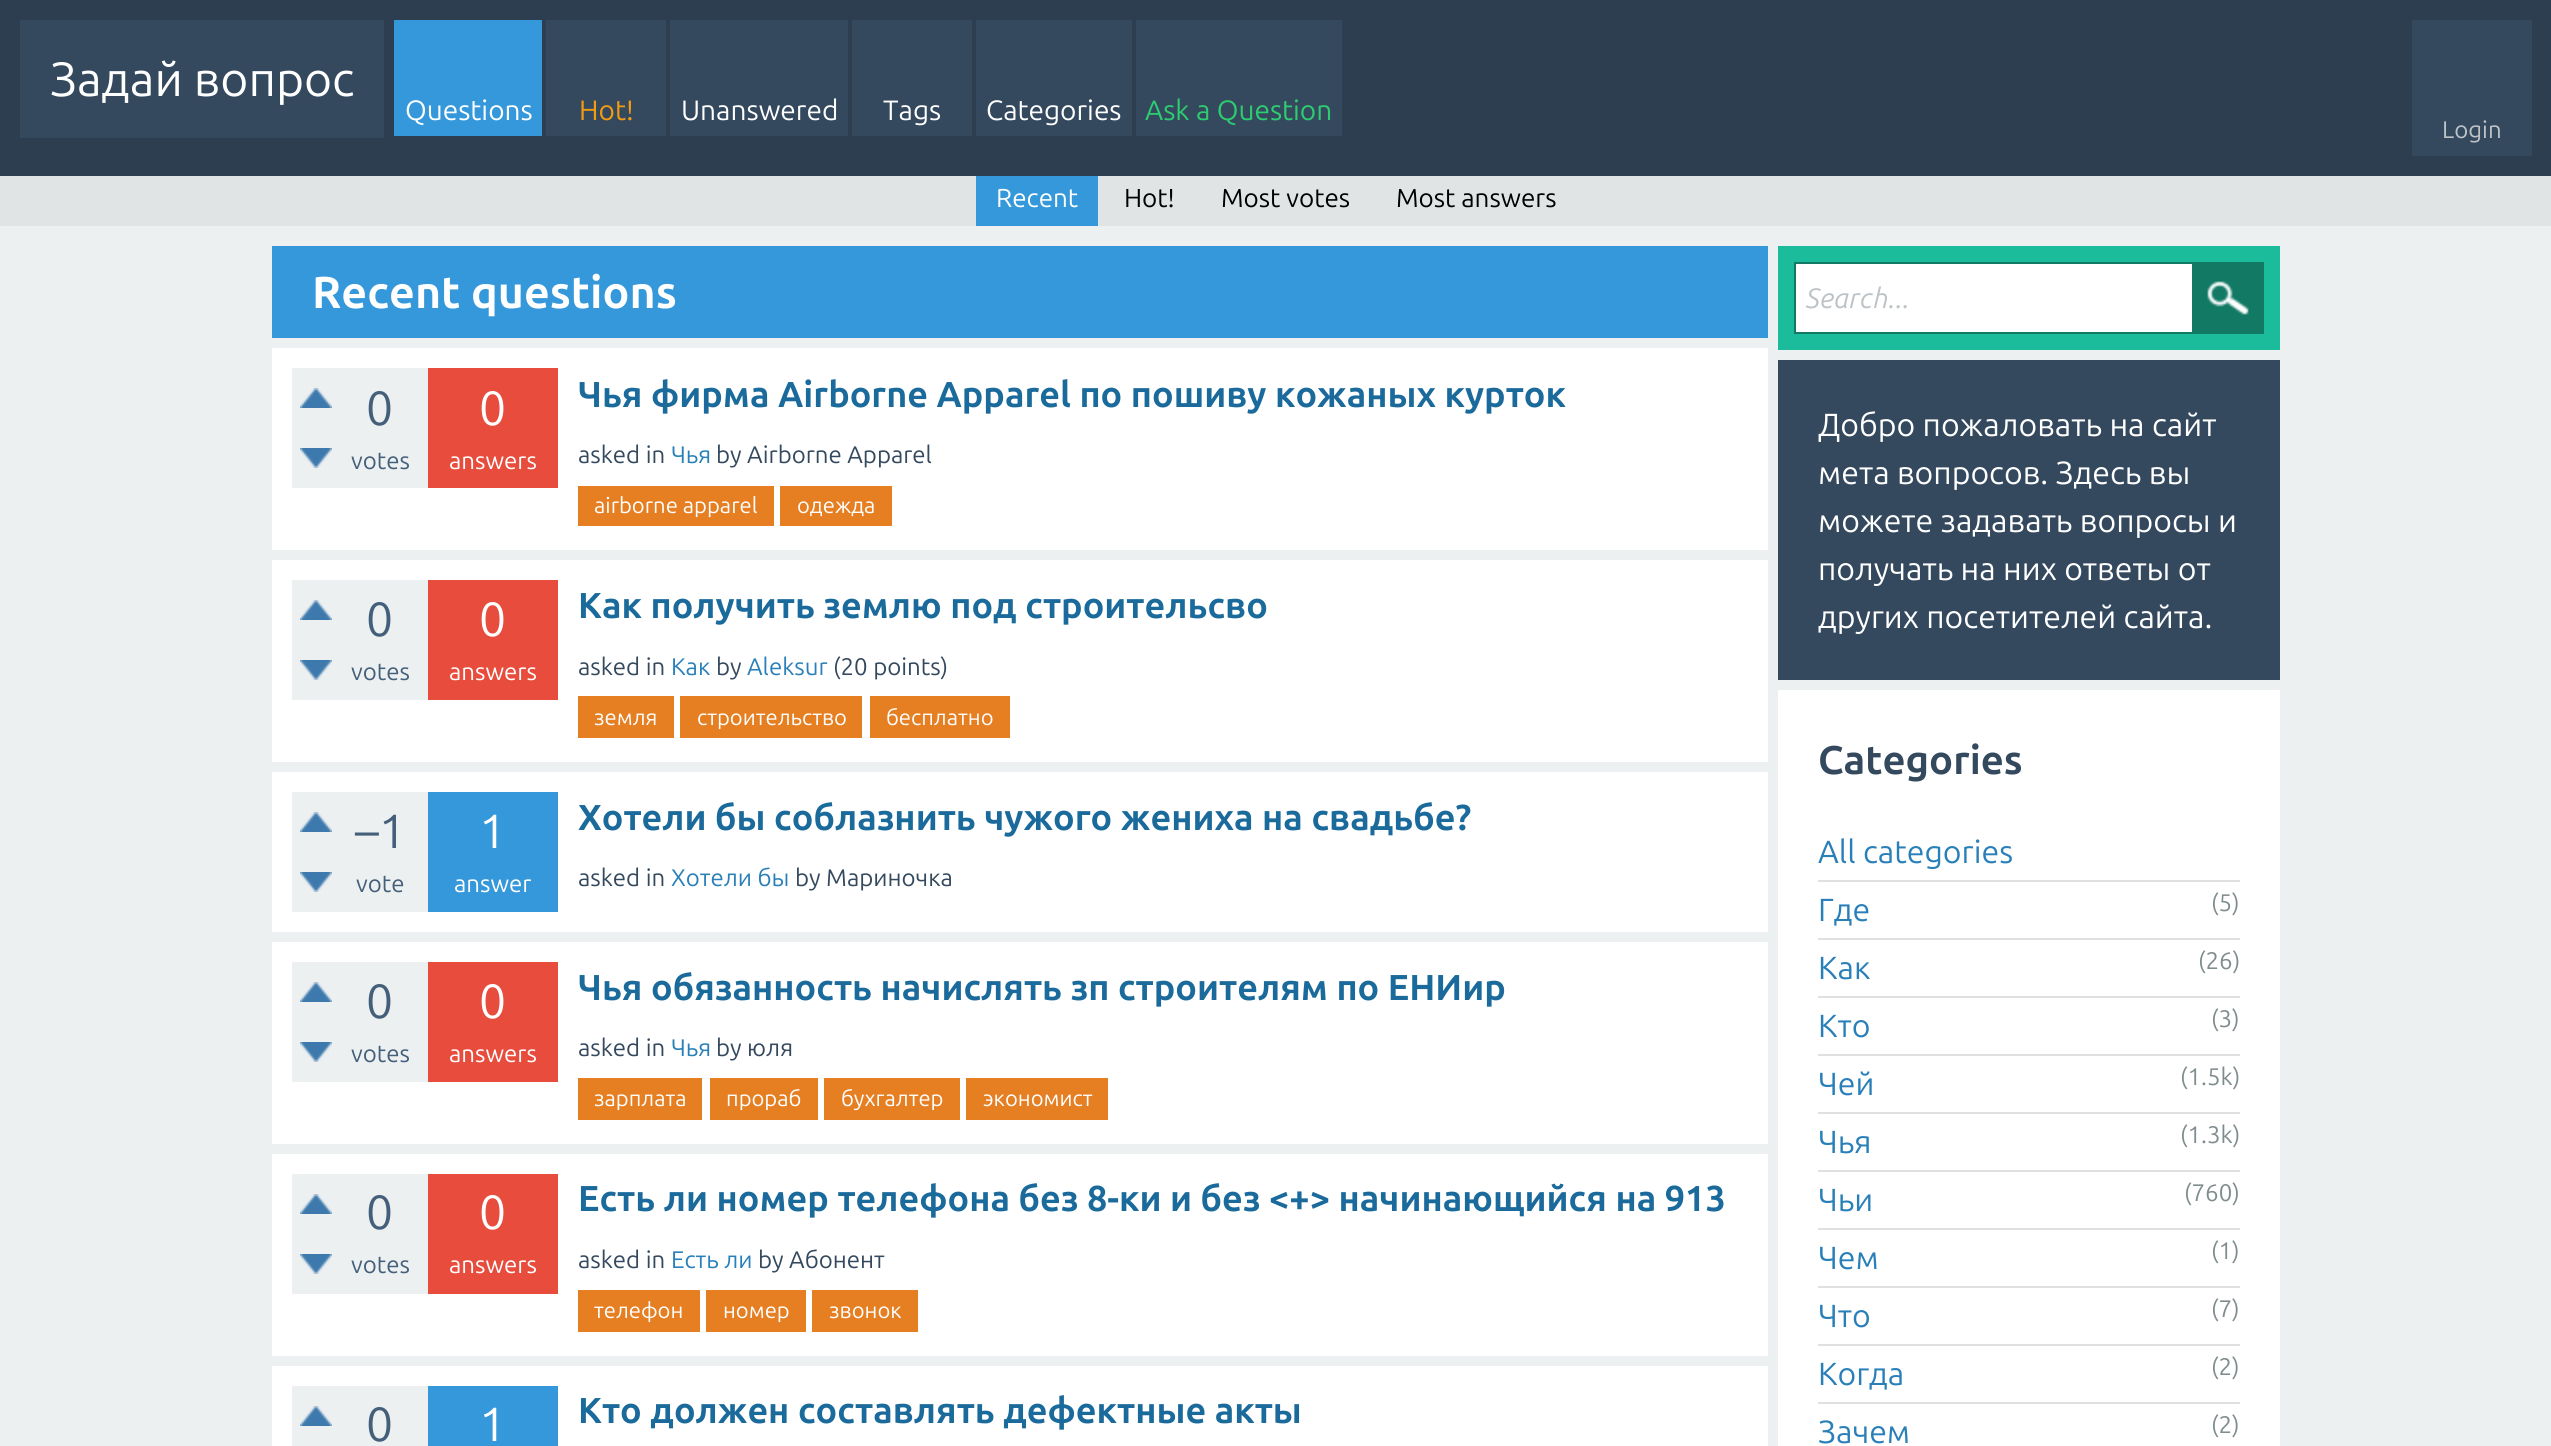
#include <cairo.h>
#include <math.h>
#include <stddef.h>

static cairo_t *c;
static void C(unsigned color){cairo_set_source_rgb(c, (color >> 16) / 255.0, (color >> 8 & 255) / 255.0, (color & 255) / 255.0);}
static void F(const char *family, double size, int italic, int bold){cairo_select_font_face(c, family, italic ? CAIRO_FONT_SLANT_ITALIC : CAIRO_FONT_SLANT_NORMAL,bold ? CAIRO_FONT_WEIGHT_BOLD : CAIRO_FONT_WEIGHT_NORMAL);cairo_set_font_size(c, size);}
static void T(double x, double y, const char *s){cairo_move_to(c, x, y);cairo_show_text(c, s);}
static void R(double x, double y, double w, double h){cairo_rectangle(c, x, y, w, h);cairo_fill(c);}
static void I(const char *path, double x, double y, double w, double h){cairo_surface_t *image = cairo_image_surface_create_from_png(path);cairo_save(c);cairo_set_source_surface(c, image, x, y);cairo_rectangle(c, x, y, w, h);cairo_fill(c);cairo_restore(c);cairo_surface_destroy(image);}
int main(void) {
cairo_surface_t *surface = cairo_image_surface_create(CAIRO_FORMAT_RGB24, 2551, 1446);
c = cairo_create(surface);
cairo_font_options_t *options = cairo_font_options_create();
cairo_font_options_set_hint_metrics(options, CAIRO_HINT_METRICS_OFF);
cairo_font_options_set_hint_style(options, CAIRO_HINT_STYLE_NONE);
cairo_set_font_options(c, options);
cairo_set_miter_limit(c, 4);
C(0xecf0f1);
cairo_paint(c);
C(0x2c3e50);
R(0,0,2551,176);
C(0x34495e);
R(20,20,364,118);
F("Ubuntu",48,0,0);
C(0xffffff);
T(50,96,"Задай вопрос");
C(0x3498db);
R(394,20,148,116);
F("Ubuntu",28,0,0);
C(0xffffff);
T(405,120,"Questions");
C(0x34495e);
R(546,20,120,116);
C(0xf39c12);
T(579,120,"Hot!");
C(0x34495e);
R(670,20,178,116);
C(0xffffff);
T(681,120,"Unanswered");
C(0x34495e);
R(852,20,120,116);
C(0xffffff);
T(883,120,"Tags");
C(0x34495e);
R(976,20,156,116);
C(0xffffff);
T(986,120,"Categories");
C(0x34495e);
R(1136,20,206,116);
C(0x2ecc71);
T(1145,120,"Ask a Question");
C(0x34495e);
R(2412,20,120,136);
F("Ubuntu",24,0,0);
C(0xbdc3c7);
T(2442,138,"Login");
C(0xe0e4e5);
R(0,176,2551,50);
C(0x3498db);
R(976,176,122,50);
F("Ubuntu",26,0,0);
C(0xffffff);
T(996,207,"Recent");
C(0x000000);
T(1124,207,"Hot!");
T(1221,207,"Most votes");
T(1396,207,"Most answers");
C(0x3498db);
R(272,246,1496,92);
F("Ubuntu",44.75,0,1);
C(0xffffff);
T(312,308,"Recent questions");
R(272,348,1496,202);
C(0xecf0f1);
R(292,368,136,120);
I("1.png",300,388,32,20);
I("2.png",300,448,32,20);
F("Ubuntu",48,0,0);
C(0x445f7a);
T(366,425,"0");
F("Ubuntu",24,0,0);
T(351,469,"votes");
C(0xe74c3c);
R(428,368,130,120);
F("Ubuntu",48,0,0);
C(0xffffff);
T(479,425,"0");
F("Ubuntu",24,0,0);
T(449,469,"answers");
F("Ubuntu",36,0,1);
C(0x1a6a9b);
T(578,407,"Чья фирма Airborne Apparel по пошиву кожаных курток");
F("Ubuntu",24,0,0);
C(0x34495e);
T(578,463,"asked in");
C(0x2980b9);
T(671,463,"Чья");
C(0x34495e);
T(716,463,"by Airborne Apparel");
C(0xe67e22);
R(578,486,196,40);
F("Ubuntu",22,0,0);
C(0xffffff);
T(594,513,"airborne apparel");
C(0xe67e22);
R(780,486,112,40);
C(0xffffff);
T(797,513,"одежда");
R(272,560,1496,202);
C(0xecf0f1);
R(292,580,136,120);
I("1.png",300,600,32,20);
I("2.png",300,660,32,20);
F("Ubuntu",48,0,0);
C(0x445f7a);
T(366,636,"0");
F("Ubuntu",24,0,0);
T(351,680,"votes");
C(0xe74c3c);
R(428,580,130,120);
F("Ubuntu",48,0,0);
C(0xffffff);
T(479,636,"0");
F("Ubuntu",24,0,0);
T(449,680,"answers");
F("Ubuntu",36,0,1);
C(0x1a6a9b);
T(578,618,"Как получить землю под строительсво");
F("Ubuntu",24,0,0);
C(0x34495e);
T(578,675,"asked in");
C(0x2980b9);
T(671,675,"Как");
C(0x34495e);
T(716,675,"by");
C(0x2980b9);
T(747,675,"Aleksur");
C(0x34495e);
T(833,675,"(20 points)");
C(0xe67e22);
R(578,696,96,42);
F("Ubuntu",22,0,0);
C(0xffffff);
T(594,725,"земля");
C(0xe67e22);
R(680,696,182,42);
C(0xffffff);
T(697,725,"строительство");
C(0xe67e22);
R(870,696,140,42);
C(0xffffff);
T(886,725,"бесплатно");
R(272,772,1496,160);
C(0xecf0f1);
R(292,792,136,120);
I("1.png",300,812,32,20);
I("2.png",300,872,32,20);
F("Ubuntu",48,0,0);
C(0x445f7a);
T(355,848,"–1");
F("Ubuntu",24,0,0);
T(356,892,"vote");
C(0x3498db);
R(428,792,130,120);
F("Ubuntu",48,0,0);
C(0xffffff);
T(479,848,"1");
F("Ubuntu",24,0,0);
T(454,892,"answer");
F("Ubuntu",36,0,1);
C(0x1a6a9b);
T(578,830,"Хотели бы соблазнить чужого жениха на свадьбе?");
F("Ubuntu",24,0,0);
C(0x34495e);
T(578,886,"asked in");
C(0x2980b9);
T(671,886,"Хотели бы");
C(0x34495e);
T(795,886,"by Мариночка");
C(0xffffff);
R(272,942,1496,202);
C(0xecf0f1);
R(292,962,136,120);
I("1.png",300,982,32,20);
I("2.png",300,1042,32,20);
F("Ubuntu",48,0,0);
C(0x445f7a);
T(366,1018,"0");
F("Ubuntu",24,0,0);
T(351,1062,"votes");
C(0xe74c3c);
R(428,962,130,120);
F("Ubuntu",48,0,0);
C(0xffffff);
T(479,1018,"0");
F("Ubuntu",24,0,0);
T(449,1062,"answers");
F("Ubuntu",36,0,1);
C(0x1a6a9b);
T(578,1000,"Чья обязанность начислять зп строителям по ЕНИир");
F("Ubuntu",24,0,0);
C(0x34495e);
T(578,1056,"asked in");
C(0x2980b9);
T(671,1056,"Чья");
C(0x34495e);
T(716,1056,"by юля");
C(0xe67e22);
R(578,1078,124,42);
F("Ubuntu",22,0,0);
C(0xffffff);
T(594,1106,"зарплата");
C(0xe67e22);
R(710,1078,108,42);
C(0xffffff);
T(726,1106,"прораб");
C(0xe67e22);
R(824,1078,136,42);
C(0xffffff);
T(841,1106,"бухгалтер");
C(0xe67e22);
R(966,1078,142,42);
C(0xffffff);
T(983,1106,"экономист");
R(272,1154,1496,202);
C(0xecf0f1);
R(292,1174,136,120);
I("1.png",300,1194,32,20);
I("2.png",300,1254,32,20);
F("Ubuntu",48,0,0);
C(0x445f7a);
T(366,1229,"0");
F("Ubuntu",24,0,0);
T(351,1273,"votes");
C(0xe74c3c);
R(428,1174,130,120);
F("Ubuntu",48,0,0);
C(0xffffff);
T(479,1229,"0");
F("Ubuntu",24,0,0);
T(449,1273,"answers");
F("Ubuntu",36,0,1);
C(0x1a6a9b);
T(578,1211,"Есть ли номер телефона без 8-ки и без <+> начинающийся на 913");
F("Ubuntu",24,0,0);
C(0x34495e);
T(578,1268,"asked in");
C(0x2980b9);
T(671,1268,"Есть ли");
C(0x34495e);
T(758,1268,"by Абонент");
C(0xe67e22);
R(578,1290,122,42);
F("Ubuntu",22,0,0);
C(0xffffff);
T(594,1318,"телефон");
C(0xe67e22);
R(706,1290,100,42);
C(0xffffff);
T(723,1318,"номер");
C(0xe67e22);
R(812,1290,106,42);
C(0xffffff);
T(829,1318,"звонок");
R(272,1366,1496,80);
C(0xecf0f1);
R(292,1386,136,60);
I("1.png",300,1406,32,20);
F("Ubuntu",48,0,0);
C(0x445f7a);
T(366,1441,"0");
C(0x3498db);
R(428,1386,130,60);
C(0xffffff);
T(479,1441,"1");
F("Ubuntu",36,0,1);
C(0x1a6a9b);
T(578,1423,"Кто должен составлять дефектные акты");
C(0x1abc9c);
R(1778,246,502,104);
C(0xffffff);
R(1796,264,396,68);
cairo_rectangle(c,1795,263,468,70);
C(0x117964);
cairo_stroke(c);
F("Ubuntu",28,1,0);
C(0xbdc3c7);
T(1806,308,"Search...");
C(0x117964);
R(2192,264,70,68);
I("3.png",2207,281,42,34);
C(0x34495e);
R(1778,360,502,320);
F("Ubuntu",32,0,0);
C(0xffffff);
T(1818,436,"Добро пожаловать на сайт");
T(1818,484,"мета вопросов. Здесь вы");
T(1818,532,"можете задавать вопросы и");
T(1818,580,"получать на них ответы от");
T(1818,628,"других посетителей сайта.");
R(1778,690,502,756);
F("Ubuntu",40,0,1);
C(0x34495e);
T(1818,774,"Categories");
C(0xe0e0e0);
R(1818,880,422,2);
F("Ubuntu",32,0,0);
C(0x2980b9);
T(1818,863,"All categories");
C(0xe0e0e0);
R(1818,938,422,2);
C(0x2980b9);
T(1818,921,"Где");
F("Ubuntu",24,0,0);
C(0x7f8c8d);
T(2211,911,"(5)");
C(0xe0e0e0);
R(1818,996,422,2);
F("Ubuntu",32,0,0);
C(0x2980b9);
T(1818,979,"Как");
F("Ubuntu",24,0,0);
C(0x7f8c8d);
T(2198,969,"(26)");
C(0xe0e0e0);
R(1818,1054,422,2);
F("Ubuntu",32,0,0);
C(0x2980b9);
T(1818,1037,"Кто");
F("Ubuntu",24,0,0);
C(0x7f8c8d);
T(2211,1027,"(3)");
C(0xe0e0e0);
R(1818,1112,422,2);
F("Ubuntu",32,0,0);
C(0x2980b9);
T(1818,1095,"Чей");
F("Ubuntu",24,0,0);
C(0x7f8c8d);
T(2180,1085,"(1.5k)");
C(0xe0e0e0);
R(1818,1170,422,2);
F("Ubuntu",32,0,0);
C(0x2980b9);
T(1818,1153,"Чья");
F("Ubuntu",24,0,0);
C(0x7f8c8d);
T(2180,1143,"(1.3k)");
C(0xe0e0e0);
R(1818,1228,422,2);
F("Ubuntu",32,0,0);
C(0x2980b9);
T(1818,1211,"Чьи");
F("Ubuntu",24,0,0);
C(0x7f8c8d);
T(2184,1201,"(760)");
C(0xe0e0e0);
R(1818,1286,422,2);
F("Ubuntu",32,0,0);
C(0x2980b9);
T(1818,1269,"Чем");
F("Ubuntu",24,0,0);
C(0x7f8c8d);
T(2211,1259,"(1)");
C(0xe0e0e0);
R(1818,1344,422,2);
F("Ubuntu",32,0,0);
C(0x2980b9);
T(1818,1327,"Что");
F("Ubuntu",24,0,0);
C(0x7f8c8d);
T(2211,1317,"(7)");
C(0xe0e0e0);
R(1818,1402,422,2);
F("Ubuntu",32,0,0);
C(0x2980b9);
T(1818,1385,"Когда");
F("Ubuntu",24,0,0);
C(0x7f8c8d);
T(2211,1375,"(2)");
F("Ubuntu",32,0,0);
C(0x2980b9);
T(1818,1443,"Зачем");
F("Ubuntu",24,0,0);
C(0x7f8c8d);
T(2211,1433,"(2)");
cairo_surface_write_to_png(surface, "o.png");
cairo_font_options_destroy(options);
cairo_destroy(c);
cairo_surface_destroy(surface);
return 0;
}
